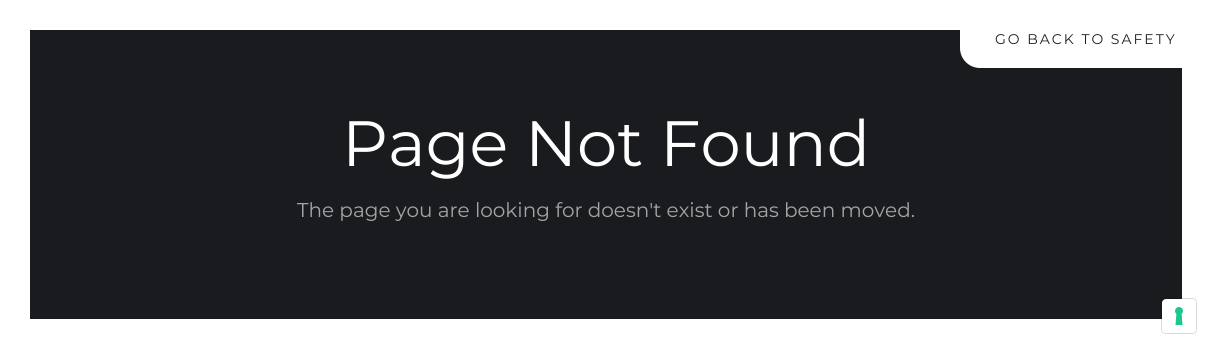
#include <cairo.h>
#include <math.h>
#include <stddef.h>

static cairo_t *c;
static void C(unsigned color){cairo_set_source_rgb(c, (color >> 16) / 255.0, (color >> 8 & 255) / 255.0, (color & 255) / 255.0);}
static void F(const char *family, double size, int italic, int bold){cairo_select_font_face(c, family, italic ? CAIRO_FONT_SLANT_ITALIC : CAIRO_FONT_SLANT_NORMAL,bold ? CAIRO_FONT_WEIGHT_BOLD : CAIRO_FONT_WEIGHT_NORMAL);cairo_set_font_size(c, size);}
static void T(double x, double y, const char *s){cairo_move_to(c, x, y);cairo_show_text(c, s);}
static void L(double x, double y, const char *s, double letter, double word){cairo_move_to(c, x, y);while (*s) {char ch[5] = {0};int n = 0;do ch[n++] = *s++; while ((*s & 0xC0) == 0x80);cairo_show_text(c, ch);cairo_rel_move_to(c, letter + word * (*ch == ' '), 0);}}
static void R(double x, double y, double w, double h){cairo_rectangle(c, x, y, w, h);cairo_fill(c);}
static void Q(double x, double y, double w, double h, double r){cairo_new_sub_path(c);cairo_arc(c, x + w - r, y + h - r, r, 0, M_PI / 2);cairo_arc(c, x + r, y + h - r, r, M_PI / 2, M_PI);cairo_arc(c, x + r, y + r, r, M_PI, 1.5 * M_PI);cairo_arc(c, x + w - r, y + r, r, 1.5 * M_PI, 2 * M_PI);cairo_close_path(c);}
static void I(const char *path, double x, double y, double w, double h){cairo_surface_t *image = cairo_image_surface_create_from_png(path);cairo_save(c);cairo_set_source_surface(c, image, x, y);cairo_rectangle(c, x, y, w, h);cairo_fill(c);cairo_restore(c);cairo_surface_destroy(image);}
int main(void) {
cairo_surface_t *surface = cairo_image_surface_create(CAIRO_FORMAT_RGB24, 1212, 349);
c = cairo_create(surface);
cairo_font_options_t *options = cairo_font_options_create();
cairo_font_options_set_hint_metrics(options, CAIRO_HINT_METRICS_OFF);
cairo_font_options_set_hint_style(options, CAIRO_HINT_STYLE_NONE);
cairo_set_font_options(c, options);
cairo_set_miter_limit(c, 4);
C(0xffffff);
cairo_paint(c);
C(0x1a1b1f);
R(30,30,1152,289);
C(0xffffff);
Q(960,10,252,58,20);
cairo_fill(c);
F("Montserrat",14,0,0);
C(0x202020);
L(995,44,"GO BACK TO SAFETY",2,0);
F("Montserrat",64,0,0);
C(0xffffff);
T(342,166,"Page Not Found");
F("Montserrat",20,0,0);
C(0xa3a4a5);
T(297,217,"The page you are looking for doesn't exist or has been moved.");
Q(1161.5,298.5,35,35,4.5);
cairo_set_source_rgba(c,0,0,0,0.15);
cairo_set_line_width(c,1);
cairo_stroke(c);
C(0xffffff);
Q(1162,299,34,34,4);
cairo_fill(c);
I("1.png",1175,307,8,18);
cairo_surface_write_to_png(surface, "o.png");
cairo_font_options_destroy(options);
cairo_destroy(c);
cairo_surface_destroy(surface);
return 0;
}
